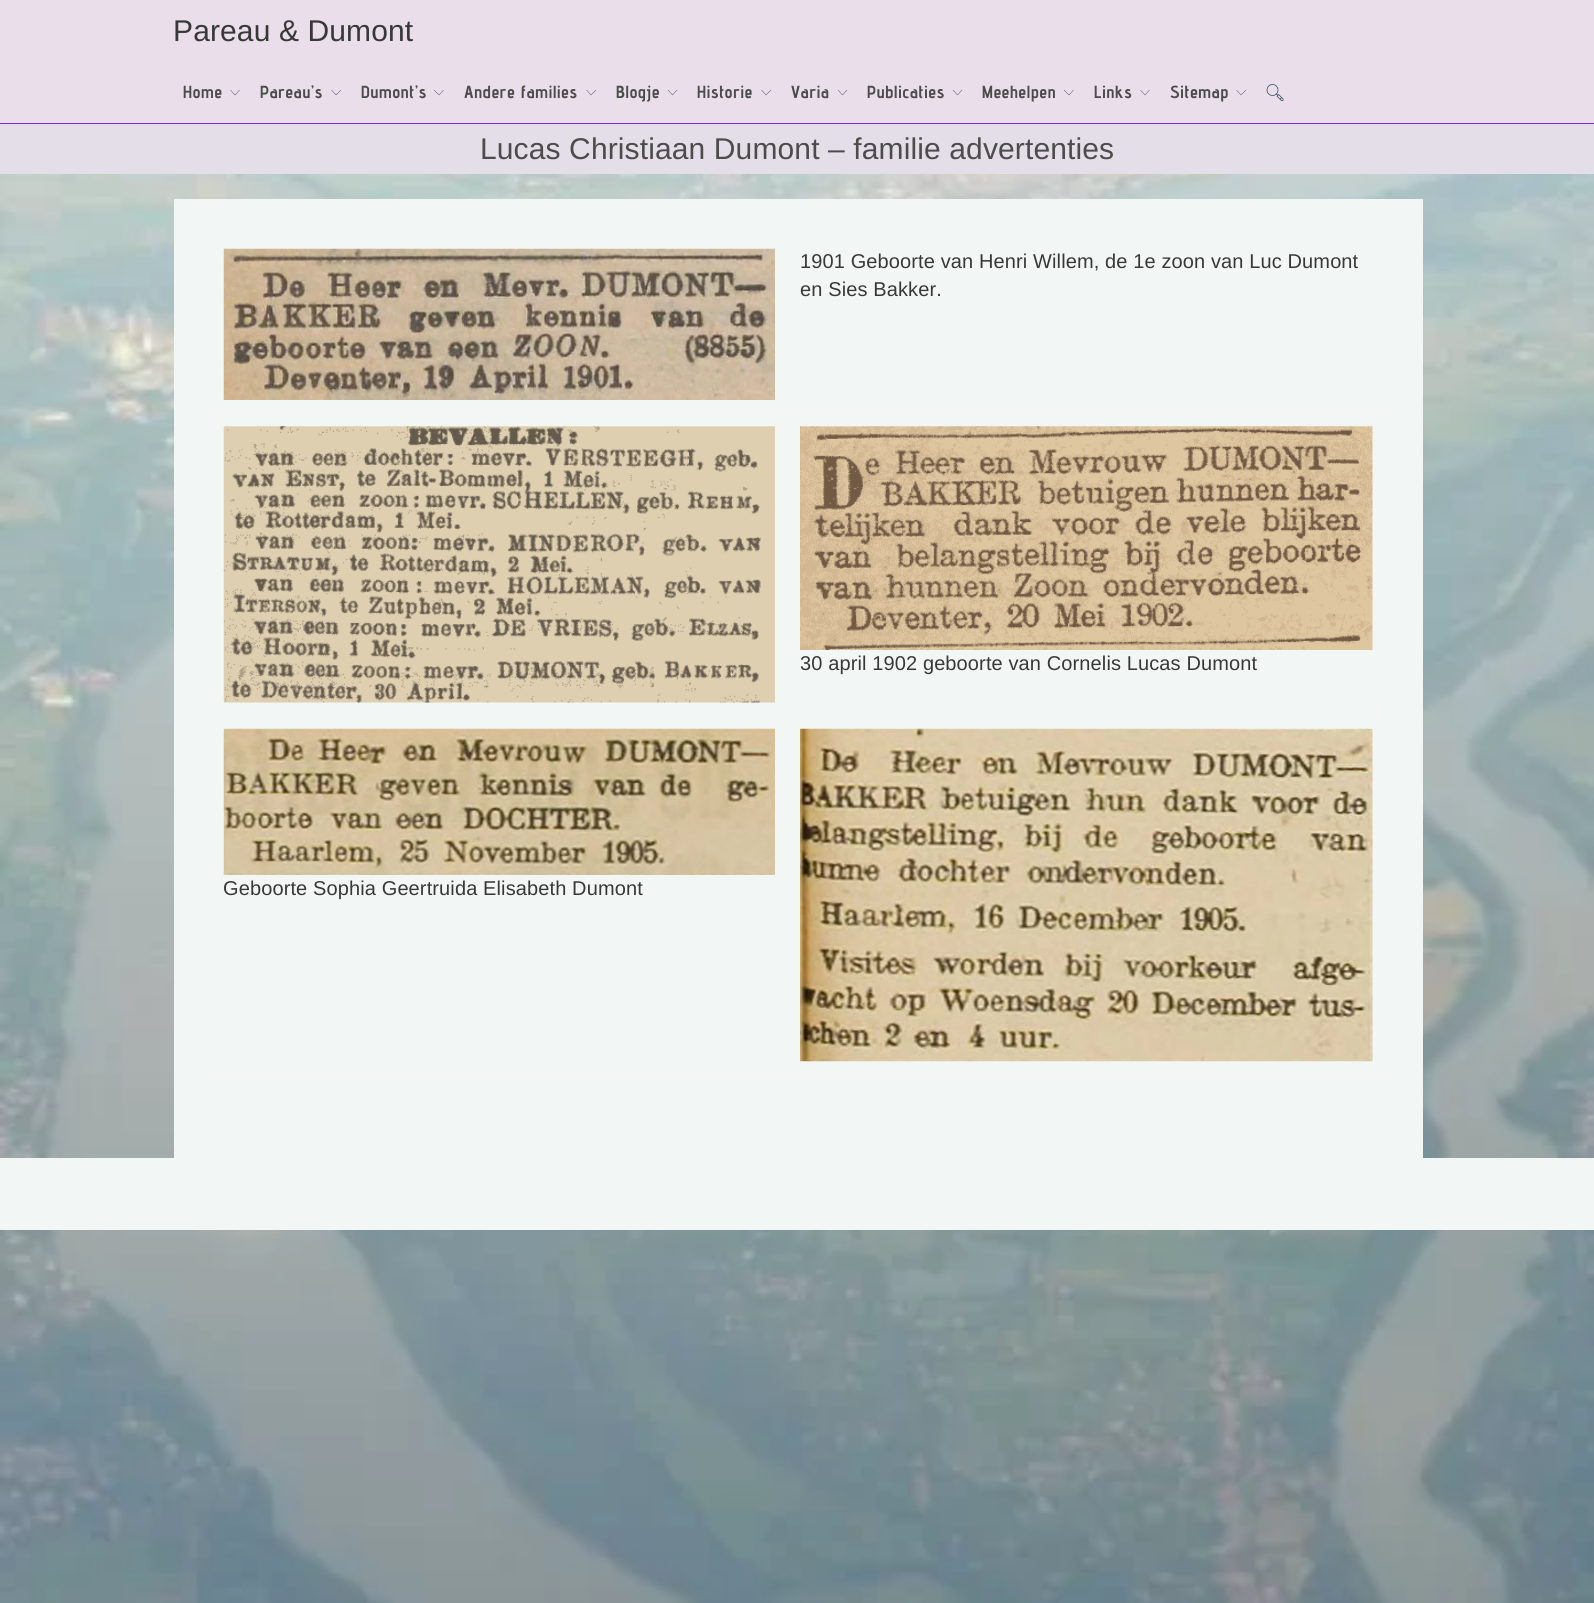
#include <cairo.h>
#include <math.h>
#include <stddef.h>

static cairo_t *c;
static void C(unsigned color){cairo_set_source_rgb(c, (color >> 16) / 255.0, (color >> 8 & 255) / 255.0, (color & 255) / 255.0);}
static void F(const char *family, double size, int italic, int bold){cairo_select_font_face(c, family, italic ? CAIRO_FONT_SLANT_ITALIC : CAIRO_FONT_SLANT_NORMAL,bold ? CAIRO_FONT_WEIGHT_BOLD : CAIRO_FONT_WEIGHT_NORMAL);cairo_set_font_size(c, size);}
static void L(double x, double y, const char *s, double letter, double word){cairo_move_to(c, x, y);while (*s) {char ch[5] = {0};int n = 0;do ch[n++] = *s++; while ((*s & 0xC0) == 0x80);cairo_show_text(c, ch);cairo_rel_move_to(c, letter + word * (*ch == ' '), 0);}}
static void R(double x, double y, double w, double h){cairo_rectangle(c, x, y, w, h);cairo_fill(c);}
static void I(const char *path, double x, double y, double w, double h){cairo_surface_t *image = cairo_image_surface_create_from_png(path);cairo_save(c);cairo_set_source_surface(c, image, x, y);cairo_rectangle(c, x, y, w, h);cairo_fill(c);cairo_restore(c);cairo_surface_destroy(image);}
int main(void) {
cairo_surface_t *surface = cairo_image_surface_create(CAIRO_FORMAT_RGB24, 1594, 1603);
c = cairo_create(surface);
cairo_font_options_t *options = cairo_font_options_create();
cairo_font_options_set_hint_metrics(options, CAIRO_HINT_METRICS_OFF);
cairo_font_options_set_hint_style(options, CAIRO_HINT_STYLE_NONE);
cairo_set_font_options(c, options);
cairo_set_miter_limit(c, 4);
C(0xffffff);
cairo_paint(c);
I("1.png",0,174,1594,1429);
C(0xe9deea);
R(0,0,1594,123);
C(0x8224e3);
R(0,123,1594,1);
F("Liberation Sans",30,0,0);
C(0x383838);
L(173,41,"Pareau & Dumont",.12,0);
F("Advent Pro",17.5,0,1);
C(0x4c4c4c);
L(183,98,"Home",.75,0);
cairo_new_path(c);
cairo_move_to(c,239.5,90);
cairo_line_to(c,235,95);
cairo_line_to(c,230.5,90);
C(0x2d3e50);
cairo_set_line_width(c,.4);
cairo_stroke(c);
C(0x4c4c4c);
L(260,98,"Pareau’s",.75,0);
cairo_new_path(c);
cairo_move_to(c,341,90);
cairo_line_to(c,336,95);
cairo_line_to(c,331.5,90);
C(0x2d3e50);
cairo_stroke(c);
C(0x4c4c4c);
L(361,98,"Dumont’s",.75,0);
cairo_new_path(c);
cairo_move_to(c,443.5,90);
cairo_line_to(c,439,95);
cairo_line_to(c,434,90);
C(0x2d3e50);
cairo_stroke(c);
C(0x4c4c4c);
L(464,98,"Andere families",.75,0);
cairo_new_path(c);
cairo_move_to(c,596,90);
cairo_line_to(c,591,95);
cairo_line_to(c,586.5,90);
C(0x2d3e50);
cairo_stroke(c);
C(0x4c4c4c);
L(616,98,"Blogje",.75,0);
cairo_new_path(c);
cairo_move_to(c,677,90);
cairo_line_to(c,672.5,95);
cairo_line_to(c,668,90);
C(0x2d3e50);
cairo_stroke(c);
C(0x4c4c4c);
L(697,98,"Historie",.75,0);
cairo_new_path(c);
cairo_move_to(c,771,90);
cairo_line_to(c,766,95);
cairo_line_to(c,761.5,90);
C(0x2d3e50);
cairo_stroke(c);
C(0x4c4c4c);
L(791,98,"Varia",.75,0);
cairo_new_path(c);
cairo_move_to(c,847,90);
cairo_line_to(c,842.5,95);
cairo_line_to(c,838,90);
C(0x2d3e50);
cairo_stroke(c);
C(0x4c4c4c);
L(867,98,"Publicaties",.75,0);
cairo_new_path(c);
cairo_move_to(c,962,90);
cairo_line_to(c,957.5,95);
cairo_line_to(c,953,90);
C(0x2d3e50);
cairo_stroke(c);
C(0x4c4c4c);
L(982,98,"Meehelpen",.75,0);
cairo_new_path(c);
cairo_move_to(c,1073.5,90);
cairo_line_to(c,1069,95);
cairo_line_to(c,1064,90);
C(0x2d3e50);
cairo_stroke(c);
C(0x4c4c4c);
L(1094,98,"Links",.75,0);
cairo_new_path(c);
cairo_move_to(c,1149.5,90);
cairo_line_to(c,1145,95);
cairo_line_to(c,1140.5,90);
C(0x2d3e50);
cairo_stroke(c);
C(0x4c4c4c);
L(1170,98,"Sitemap",.75,0);
cairo_new_path(c);
cairo_move_to(c,1246,90);
cairo_line_to(c,1241,95);
cairo_line_to(c,1236.5,90);
C(0x2d3e50);
cairo_stroke(c);
I("2.png",1266,84,18,17);
C(0xe4dee8);
R(0,124,1594,50);
F("Liberation Sans",30,0,0);
C(0x4c4c4c);
L(480,159,"Lucas Christiaan Dumont – familie advertenties",.12,0);
C(0xf2f7f6);
R(174,199,1249,959);
I("3.png",223,248,552,152);
C(0xfcf3f2);
R(210,413,1175,1);
F("Liberation Sans",20,0,0);
C(0x383838);
L(800,268,"1901 Geboorte van Henri Willem, de 1e zoon van Luc Dumont",.12,0);
L(800,296,"en Sies Bakker.",.12,0);
I("4.png",223,426,552,277);
C(0xfcf3f2);
R(210,715,1175,1);
I("5.png",800,426,573,224);
C(0x383838);
L(800,670,"30 april 1902 geboorte van Cornelis Lucas Dumont",.12,0);
C(0xfcf3f2);
R(210,1074,1175,1);
I("6.png",800,728,573,334);
I("7.png",223,728,552,147);
C(0x383838);
L(223,895,"Geboorte Sophia Geertruida Elisabeth Dumont",.12,0);
C(0xf2f7f6);
R(0,1158,1594,72);
cairo_surface_write_to_png(surface, "o.png");
cairo_font_options_destroy(options);
cairo_destroy(c);
cairo_surface_destroy(surface);
return 0;
}
